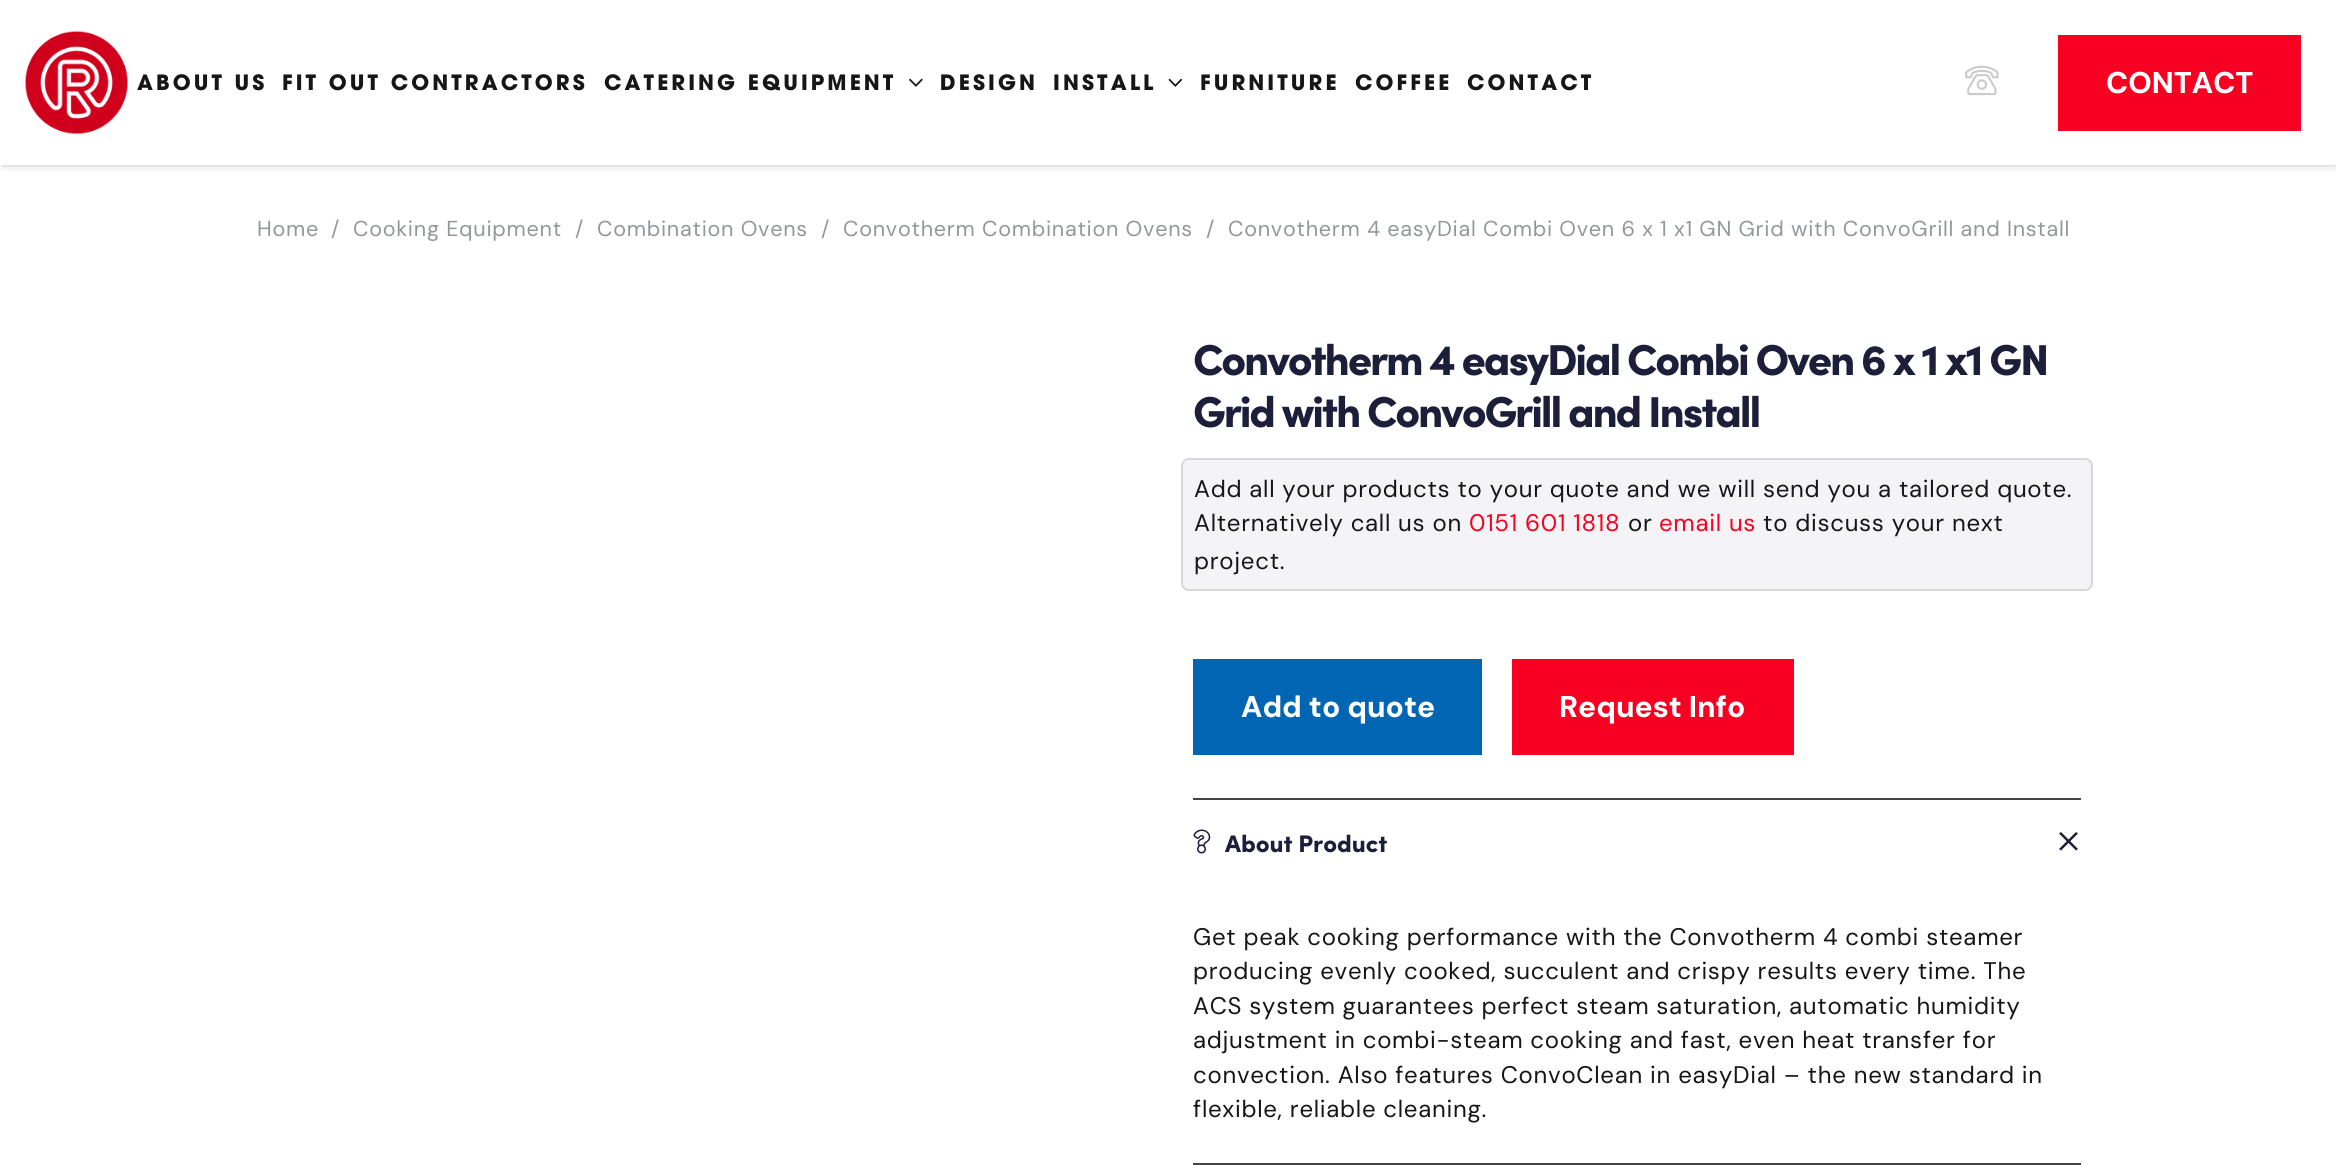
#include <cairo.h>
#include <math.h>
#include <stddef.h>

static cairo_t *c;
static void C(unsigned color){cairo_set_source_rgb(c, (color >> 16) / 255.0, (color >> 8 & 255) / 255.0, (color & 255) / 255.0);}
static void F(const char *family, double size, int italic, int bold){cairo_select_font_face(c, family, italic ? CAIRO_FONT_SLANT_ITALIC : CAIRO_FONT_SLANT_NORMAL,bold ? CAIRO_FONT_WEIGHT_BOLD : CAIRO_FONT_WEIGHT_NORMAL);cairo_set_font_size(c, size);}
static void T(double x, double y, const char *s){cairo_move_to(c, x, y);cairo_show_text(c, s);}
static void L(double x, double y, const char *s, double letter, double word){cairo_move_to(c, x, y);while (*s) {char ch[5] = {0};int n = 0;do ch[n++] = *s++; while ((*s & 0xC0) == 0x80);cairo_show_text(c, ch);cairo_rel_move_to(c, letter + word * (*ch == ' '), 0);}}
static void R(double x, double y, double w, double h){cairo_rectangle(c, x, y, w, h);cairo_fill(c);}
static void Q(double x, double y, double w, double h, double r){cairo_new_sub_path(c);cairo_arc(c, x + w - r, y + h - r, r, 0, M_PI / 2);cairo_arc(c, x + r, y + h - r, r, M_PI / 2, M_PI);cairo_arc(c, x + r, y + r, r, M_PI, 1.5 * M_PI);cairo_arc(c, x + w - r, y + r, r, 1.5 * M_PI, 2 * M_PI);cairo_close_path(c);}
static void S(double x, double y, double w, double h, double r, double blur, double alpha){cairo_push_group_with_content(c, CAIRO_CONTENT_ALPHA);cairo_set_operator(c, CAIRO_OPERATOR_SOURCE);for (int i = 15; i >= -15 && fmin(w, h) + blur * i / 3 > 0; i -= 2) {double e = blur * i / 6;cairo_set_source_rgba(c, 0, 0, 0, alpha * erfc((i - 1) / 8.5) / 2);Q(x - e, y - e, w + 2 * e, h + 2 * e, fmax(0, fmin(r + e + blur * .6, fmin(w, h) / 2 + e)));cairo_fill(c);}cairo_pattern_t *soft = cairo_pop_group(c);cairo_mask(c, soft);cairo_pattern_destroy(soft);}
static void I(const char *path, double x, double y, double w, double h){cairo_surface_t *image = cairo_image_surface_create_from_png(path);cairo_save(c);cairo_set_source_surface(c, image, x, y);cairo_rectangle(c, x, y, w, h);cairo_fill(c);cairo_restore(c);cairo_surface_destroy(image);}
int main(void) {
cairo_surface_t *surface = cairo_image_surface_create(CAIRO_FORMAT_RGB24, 2336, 1165);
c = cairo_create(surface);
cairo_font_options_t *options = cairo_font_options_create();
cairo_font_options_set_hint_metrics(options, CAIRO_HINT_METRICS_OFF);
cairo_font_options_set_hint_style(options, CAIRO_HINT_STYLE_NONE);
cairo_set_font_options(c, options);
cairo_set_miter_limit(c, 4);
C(0xffffff);
cairo_paint(c);
cairo_save(c);
cairo_rectangle(c,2,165,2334,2);
cairo_clip(c);
C(0x000000);
S(2,5,2334,162,0,1,.05);
cairo_restore(c);
cairo_save(c);
cairo_rectangle(c,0,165,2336,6);
cairo_clip(c);
C(0x000000);
S(2,6,2334,162,0,4,.1);
cairo_restore(c);
I("1.png",25,31,103,104);
F("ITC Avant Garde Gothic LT",21,0,1);
C(0x161616);
L(137,90,"ABOUT US",3.1,0);
L(282,90,"FIT OUT CONTRACTORS",3.1,0);
L(604,90,"CATERING EQUIPMENT",3.1,0);
I("2.png",909,78,14,9);
L(940,90,"DESIGN",3.1,0);
L(1053,90,"INSTALL",3.1,0);
I("3.png",1168,78,15,9);
L(1200,90,"FURNITURE",3.1,0);
L(1355,90,"COFFEE",3.1,0);
L(1467,90,"CONTACT",3.1,0);
I("4.png",1965,65,34,31);
C(0xf70021);
R(2058,35,243,96);
F("DM Sans ExtraBold",30,0,0);
C(0xffffff);
T(2106,93,"CONTACT");
F("DM Sans",21.6,0,0);
C(0x949799);
L(257,236,"Home",.72,0);
L(331,236,"/",.72,0);
L(353,236,"Cooking Equipment",.72,0);
L(575,236,"/",.72,0);
L(597,236,"Combination Ovens",.72,0);
L(821,236,"/",.72,0);
L(843,236,"Convotherm Combination Ovens",.72,0);
L(1206,236,"/",.72,0);
L(1228,236,"Convotherm 4 easyDial Combi Oven 6 x 1 x1 GN Grid with ConvoGrill and Install",.72,0);
F("Sofia Black",43.25,0,0);
C(0x1d1e3a);
L(1193,375,"Convotherm 4 easyDial Combi Oven 6 x 1 x1 GN",-2.15,0);
L(1193,427,"Grid with ConvoGrill and Install",-2.15,0);
C(0xf4f4f6);
Q(1181,458,912,133,8);
cairo_fill(c);
Q(1182,459,910,131,7);
cairo_set_source_rgba(c,0.114,0.118,0.227,0.14);
cairo_stroke(c);
F("DM Sans",24,0,0);
C(0x161616);
L(1194,497,"Add all your products to your quote and we will send you a tailored quote.",.72,0);
L(1194,531,"Alternatively call us on",.72,0);
C(0xf70021);
L(1469,531,"0151 601 1818",.72,0);
C(0x161616);
L(1628,531,"or",.72,0);
C(0xf70021);
L(1659,531,"email us",.72,0);
C(0x161616);
L(1763,531,"to discuss your next",.72,0);
L(1194,569,"project.",.72,0);
C(0x0066b4);
R(1193,659,289,96);
F("DM Sans ExtraBold",30,0,0);
C(0xffffff);
T(1241,717,"Add to quote");
C(0xf70021);
R(1512,659,282,96);
C(0xffffff);
T(1559,717,"Request Info");
C(0x444444);
R(1193,798,888,2);
I("5.png",1193,829,18,25);
F("Sofia Black",24,0,0);
C(0x1d1e3a);
T(1225,852,"About Product");
cairo_new_path(c);
cairo_move_to(c,2078,849);
cairo_line_to(c,2076,850.5);
cairo_line_to(c,2059,833.5);
cairo_line_to(c,2061,832);
cairo_close_path(c);
cairo_fill(c);
cairo_new_path(c);
cairo_move_to(c,2078,833.5);
cairo_line_to(c,2061,850.5);
cairo_line_to(c,2059,849);
cairo_line_to(c,2076,832);
cairo_close_path(c);
cairo_fill(c);
F("DM Sans",24,0,0);
C(0x161616);
L(1193,945,"Get peak cooking performance with the Convotherm 4 combi steamer",.72,0);
L(1193,979,"producing evenly cooked, succulent and crispy results every time. The",.72,0);
L(1193,1014,"ACS system guarantees perfect steam saturation, automatic humidity",.72,0);
L(1193,1048,"adjustment in combi-steam cooking and fast, even heat transfer for",.72,0);
L(1193,1083,"convection. Also features ConvoClean in easyDial – the new standard in",.72,0);
L(1193,1117,"flexible, reliable cleaning.",.72,0);
C(0x444444);
R(1193,1163,888,2);
cairo_surface_write_to_png(surface, "o.png");
cairo_font_options_destroy(options);
cairo_destroy(c);
cairo_surface_destroy(surface);
return 0;
}
